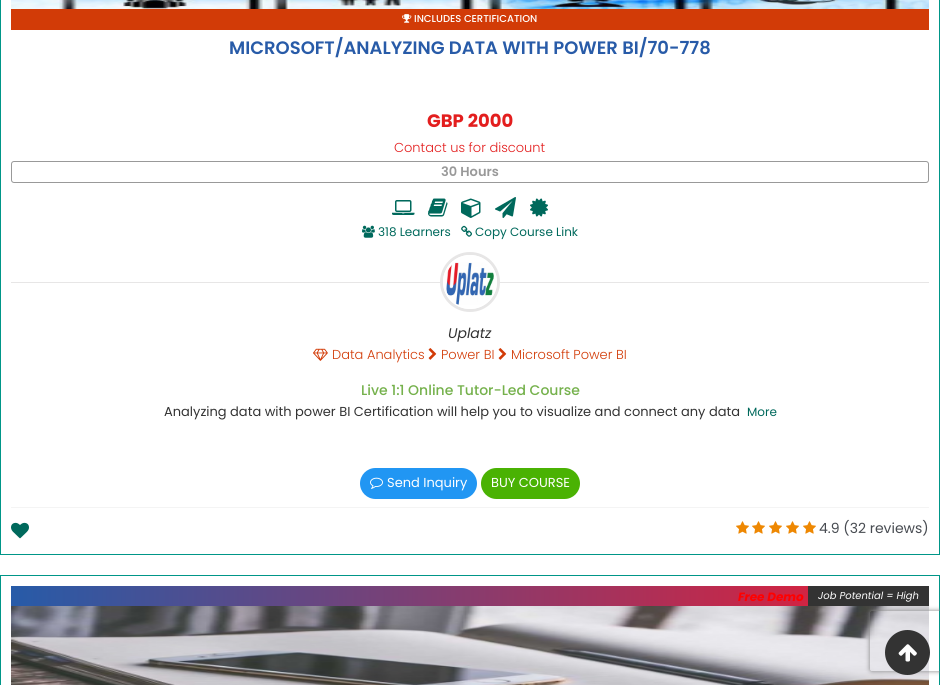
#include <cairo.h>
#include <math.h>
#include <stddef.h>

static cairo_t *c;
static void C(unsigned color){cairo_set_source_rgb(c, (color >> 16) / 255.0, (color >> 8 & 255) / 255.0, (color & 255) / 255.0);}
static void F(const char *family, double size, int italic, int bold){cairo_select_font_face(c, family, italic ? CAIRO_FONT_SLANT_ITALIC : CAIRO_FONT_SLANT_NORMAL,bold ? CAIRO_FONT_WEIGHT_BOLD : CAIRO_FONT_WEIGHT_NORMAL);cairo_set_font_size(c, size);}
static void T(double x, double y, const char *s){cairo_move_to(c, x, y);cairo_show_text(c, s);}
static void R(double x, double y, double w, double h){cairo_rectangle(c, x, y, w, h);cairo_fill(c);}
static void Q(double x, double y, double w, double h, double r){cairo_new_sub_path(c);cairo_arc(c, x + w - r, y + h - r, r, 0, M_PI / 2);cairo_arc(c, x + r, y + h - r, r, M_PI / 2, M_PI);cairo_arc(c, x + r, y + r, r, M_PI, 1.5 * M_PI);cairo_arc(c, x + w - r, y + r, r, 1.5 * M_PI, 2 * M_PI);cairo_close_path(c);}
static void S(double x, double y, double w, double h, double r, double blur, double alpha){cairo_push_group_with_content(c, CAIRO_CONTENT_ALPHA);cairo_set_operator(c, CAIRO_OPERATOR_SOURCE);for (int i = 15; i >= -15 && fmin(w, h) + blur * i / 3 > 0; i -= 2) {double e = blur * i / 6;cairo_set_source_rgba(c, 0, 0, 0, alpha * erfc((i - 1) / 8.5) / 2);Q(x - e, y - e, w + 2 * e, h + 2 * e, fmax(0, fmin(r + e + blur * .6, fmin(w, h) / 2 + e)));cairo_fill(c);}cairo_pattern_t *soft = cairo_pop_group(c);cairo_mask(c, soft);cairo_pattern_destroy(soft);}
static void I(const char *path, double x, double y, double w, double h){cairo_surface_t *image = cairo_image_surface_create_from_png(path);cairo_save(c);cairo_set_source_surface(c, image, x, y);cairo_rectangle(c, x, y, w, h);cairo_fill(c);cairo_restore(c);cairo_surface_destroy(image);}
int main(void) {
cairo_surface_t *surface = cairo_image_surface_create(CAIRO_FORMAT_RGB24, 940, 685);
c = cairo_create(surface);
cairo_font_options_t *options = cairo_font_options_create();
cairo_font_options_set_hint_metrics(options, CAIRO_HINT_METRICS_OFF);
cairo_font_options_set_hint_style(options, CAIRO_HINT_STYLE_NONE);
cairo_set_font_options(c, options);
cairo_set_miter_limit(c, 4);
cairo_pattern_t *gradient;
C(0xffffff);
cairo_paint(c);
cairo_rectangle(c,.5,-.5,939,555);
C(0x009688);
cairo_set_line_width(c,1);
cairo_stroke(c);
I("1.png",11,0,918,9);
C(0xd23b07);
R(11,9,918,21);
I("2.png",402,14,10,9);
F("Poppins Medium",10,0,0);
C(0xffffff);
T(414,22,"INCLUDES CERTIFICATION");
F("Poppins SemiBold",18,0,0);
C(0x285ba8);
T(229,54,"MICROSOFT/ANALYZING DATA WITH POWER BI/70-778");
F("Poppins",18,0,1);
C(0xe31e1e);
T(427,127,"GBP 2000");
F("Poppins Light",13,0,0);
T(394,152,"Contact us for discount");
Q(11.5,161.5,917,21,2.5);
C(0x999999);
cairo_stroke(c);
F("Poppins SemiBold",13,0,0);
T(441,176,"30 Hours");
I("3.png",392,200,23,15);
I("4.png",428,198,20,19);
I("5.png",461,198,20,20);
I("6.png",495,197,21,21);
I("7.png",530,198,18,19);
I("8.png",362,225,13,13);
F("Poppins",12,0,0);
C(0x00695c);
T(378,236,"318 Learners");
I("9.png",461,225,11,12);
T(475,236,"Copy Course Link");
C(0xe7e6e6);
R(11,282,918,1);
C(0xffffff);
cairo_new_path(c);
cairo_arc(c,470,282,28.5,0,2 * M_PI);
cairo_fill_preserve(c);
C(0xe7e6e6);
cairo_set_line_width(c,3);
cairo_stroke(c);
cairo_save(c);
Q(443,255,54,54,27);
cairo_clip(c);
cairo_set_fill_rule(c,CAIRO_FILL_RULE_EVEN_ODD);
cairo_new_path(c);
cairo_move_to(c,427,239);
cairo_line_to(c,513,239);
cairo_line_to(c,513,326);
cairo_line_to(c,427,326);
cairo_close_path(c);
cairo_move_to(c,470,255);
cairo_curve_to(c,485,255,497,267,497,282);
cairo_line_to(c,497,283);
cairo_curve_to(c,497,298,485,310,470,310);
cairo_curve_to(c,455,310,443,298,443,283);
cairo_line_to(c,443,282);
cairo_curve_to(c,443,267,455,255,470,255);
cairo_close_path(c);
cairo_clip(c);
C(0x000000);
S(443,255,54,55,27,5,.73);
cairo_restore(c);
C(0xffffff);
cairo_set_fill_rule(c,CAIRO_FILL_RULE_EVEN_ODD);
cairo_new_path(c);
cairo_move_to(c,470,255);
cairo_curve_to(c,455,255,443,267,443,282);
cairo_curve_to(c,443,297,455,309,470,309);
cairo_curve_to(c,485,309,497,297,497,282);
cairo_curve_to(c,497,267,485,255,470,255);
cairo_close_path(c);
cairo_move_to(c,470,257);
cairo_curve_to(c,437,257,437,308,470,308);
cairo_curve_to(c,503,308,503,257,470,257);
cairo_close_path(c);
cairo_fill(c);
I("10.png",446,262,48,43);
F("Poppins",14,1,0);
C(0x333333);
T(448,338,"Uplatz");
I("11.png",313,348,15,13);
F("Poppins Light",13,0,0);
C(0xd23b07);
T(332,359,"Data Analytics");
I("12.png",428,348,9,12);
T(441,359,"Power BI");
I("12.png",498,348,9,12);
T(511,359,"Microsoft Power BI");
F("Poppins Medium",14,0,0);
C(0x75b14c);
T(361,395,"Live 1:1 Online Tutor-Led Course");
F("Poppins",13,0,0);
C(0x333333);
T(164,416,"Analyzing data with power BI Certification will help you to visualize and connect any data");
F("Poppins",12,0,0);
C(0x00695c);
T(747,416,"More");
C(0xf4f4f4);
R(11,507,918,1);
C(0x2196f3);
Q(360,468,117,31,15.5);
cairo_fill(c);
I("13.png",370,477,13,12);
F("Poppins",13,0,0);
C(0xffffff);
T(387,487,"Send Inquiry");
C(0x4ab203);
Q(481,468,99,31,15.5);
cairo_fill(c);
C(0xffffff);
T(491,487,"BUY COURSE");
I("14.png",11,522,18,17);
I("15.png",736,521,13,13);
I("15.png",752,521,13,13);
I("15.png",769,521,13,13);
I("15.png",786,521,13,13);
I("15.png",803,521,13,13);
F("Poppins",14,0,0);
C(0x474b51);
T(819,533,"4.9 (32 reviews)");
cairo_rectangle(c,.5,575.5,939,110);
C(0x009688);
cairo_set_line_width(c,1);
cairo_stroke(c);
gradient = cairo_pattern_create_linear(11,596,929,596);
cairo_pattern_add_color_stop_rgba(gradient,0,0.153,0.357,0.659,1);
cairo_pattern_add_color_stop_rgba(gradient,1,0.918,0.11,0.2,1);
cairo_set_source(c,gradient);
cairo_pattern_destroy(gradient);
R(11,586,797,20);
F("Poppins",12,1,1);
C(0xff0000);
T(738,601,"Free Demo");
C(0x333333);
R(808,586,121,20);
F("Poppins",10,1,0);
C(0xffffff);
T(818,599,"Job Potential = High");
I("16.png",11,606,918,79);
cairo_save(c);
cairo_new_path(c);
cairo_move_to(c,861,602);
cairo_line_to(c,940,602);
cairo_line_to(c,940,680);
cairo_line_to(c,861,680);
cairo_close_path(c);
cairo_move_to(c,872,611);
cairo_line_to(c,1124,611);
cairo_curve_to(c,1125,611,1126,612,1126,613);
cairo_line_to(c,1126,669);
cairo_curve_to(c,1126,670,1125,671,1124,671);
cairo_line_to(c,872,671);
cairo_curve_to(c,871,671,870,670,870,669);
cairo_line_to(c,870,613);
cairo_curve_to(c,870,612,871,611,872,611);
cairo_close_path(c);
cairo_clip(c);
C(0x808080);
S(870,611,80,60,2,2.5,1);
cairo_restore(c);
C(0x333333);
cairo_arc(c,907.5,652.5,22.5,0,2 * M_PI);
cairo_fill(c);
I("17.png",898,644,19,18);
cairo_surface_write_to_png(surface, "o.png");
cairo_font_options_destroy(options);
cairo_destroy(c);
cairo_surface_destroy(surface);
return 0;
}
